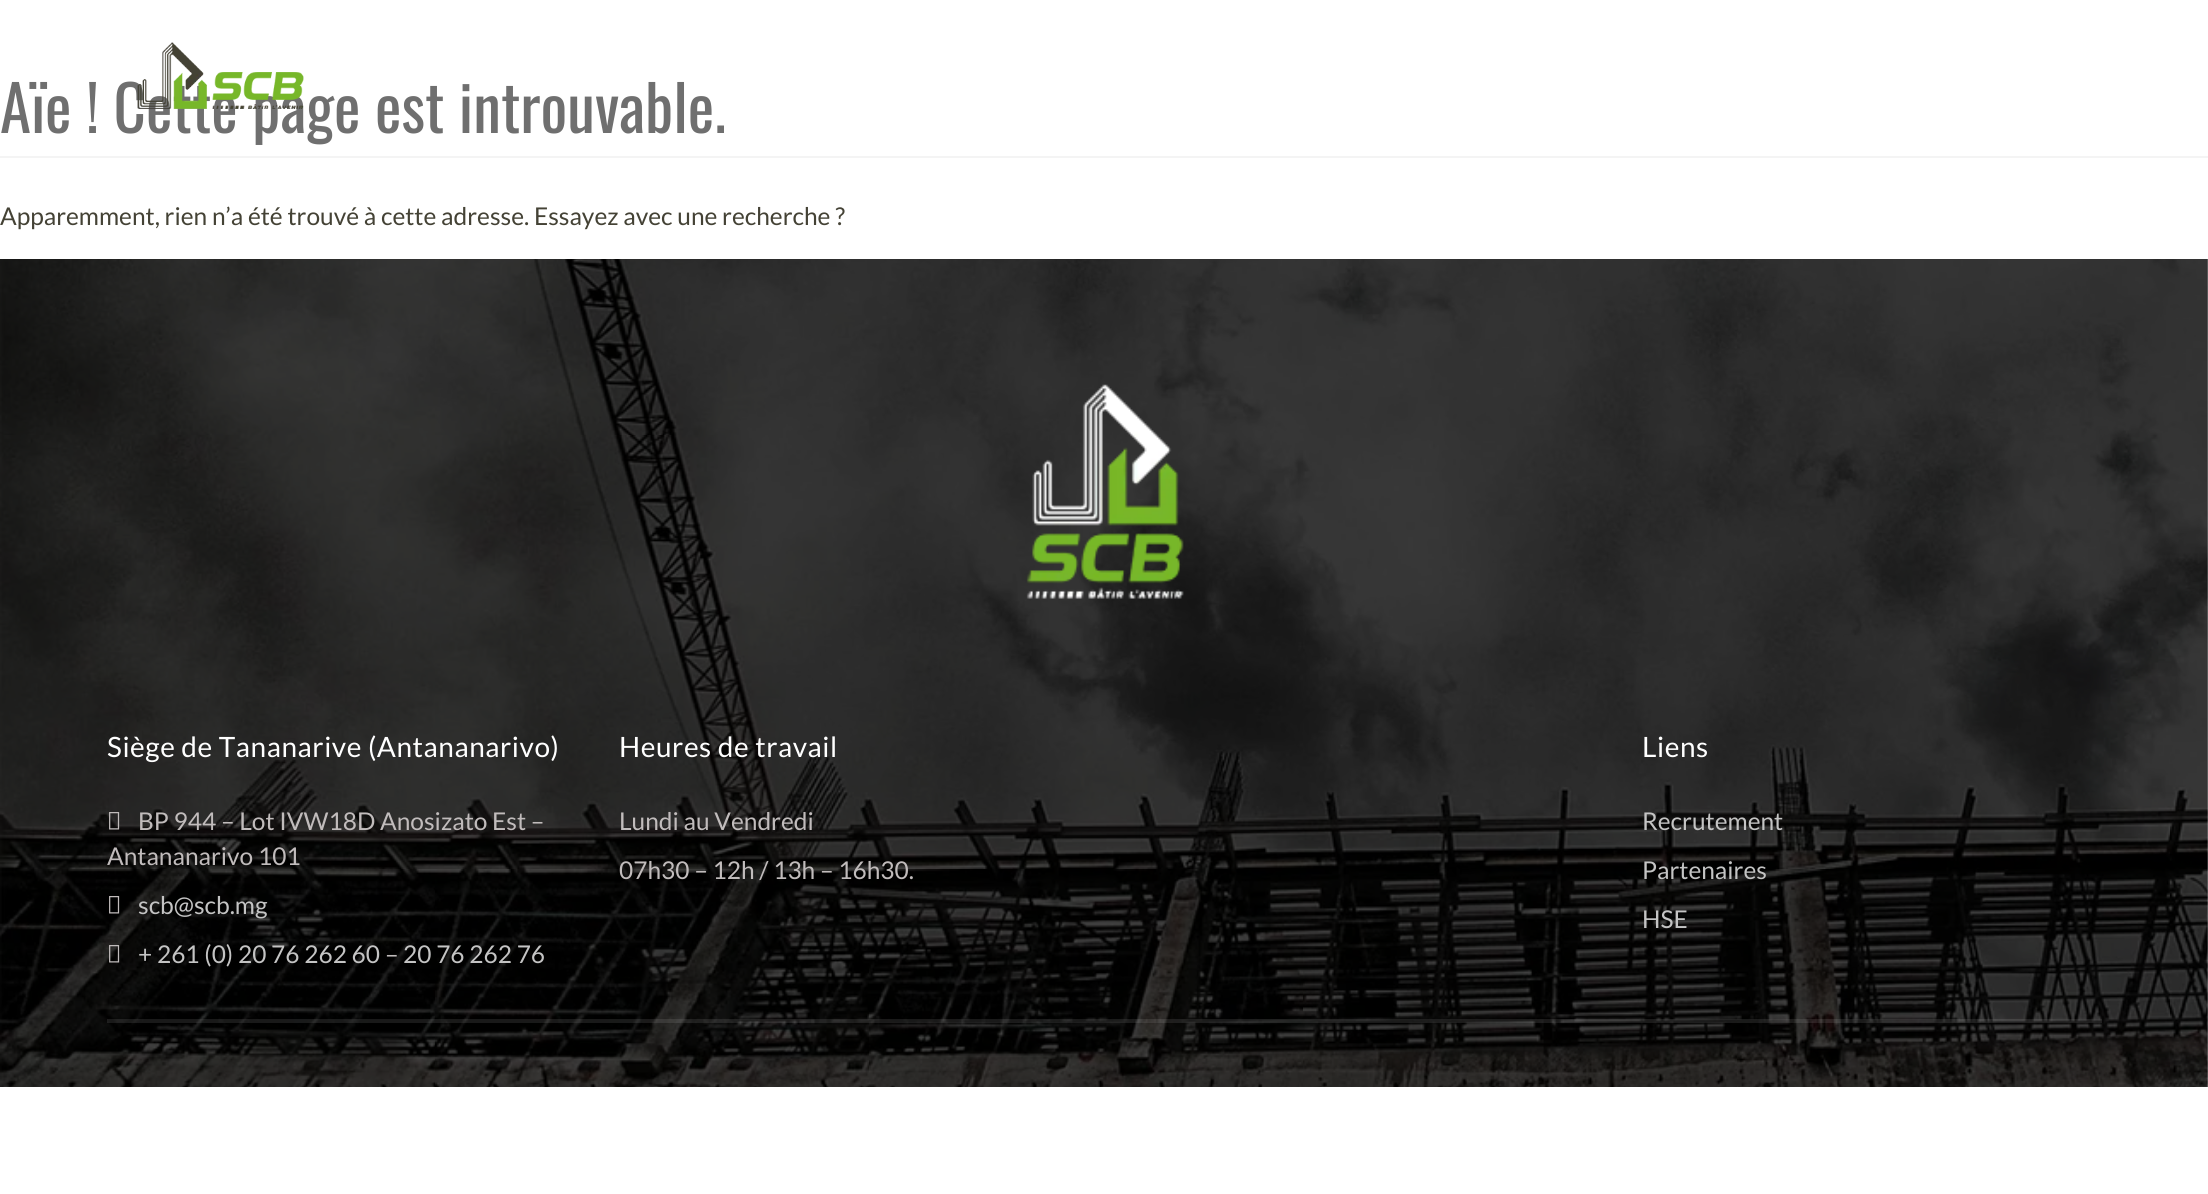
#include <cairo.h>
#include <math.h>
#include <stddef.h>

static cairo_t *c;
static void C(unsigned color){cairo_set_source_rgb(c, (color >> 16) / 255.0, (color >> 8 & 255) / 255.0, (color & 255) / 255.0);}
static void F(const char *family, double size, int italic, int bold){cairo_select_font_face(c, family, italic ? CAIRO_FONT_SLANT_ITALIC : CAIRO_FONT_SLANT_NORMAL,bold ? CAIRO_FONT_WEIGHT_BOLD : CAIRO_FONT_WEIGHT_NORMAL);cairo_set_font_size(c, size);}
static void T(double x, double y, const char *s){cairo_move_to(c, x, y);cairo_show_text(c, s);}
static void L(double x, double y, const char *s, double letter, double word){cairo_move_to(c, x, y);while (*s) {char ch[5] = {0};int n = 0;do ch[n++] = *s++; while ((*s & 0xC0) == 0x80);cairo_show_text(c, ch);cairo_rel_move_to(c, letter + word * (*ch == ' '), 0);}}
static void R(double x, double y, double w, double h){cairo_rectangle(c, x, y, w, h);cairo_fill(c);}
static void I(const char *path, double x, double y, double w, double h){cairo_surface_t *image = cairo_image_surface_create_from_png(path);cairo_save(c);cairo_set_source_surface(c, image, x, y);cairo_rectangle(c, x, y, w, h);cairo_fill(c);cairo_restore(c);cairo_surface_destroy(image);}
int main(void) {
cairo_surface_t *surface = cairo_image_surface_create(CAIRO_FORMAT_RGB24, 2208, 1194);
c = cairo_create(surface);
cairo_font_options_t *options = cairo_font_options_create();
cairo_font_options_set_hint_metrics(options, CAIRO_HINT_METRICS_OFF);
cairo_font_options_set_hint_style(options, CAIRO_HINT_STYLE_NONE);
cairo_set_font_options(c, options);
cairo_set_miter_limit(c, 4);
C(0xffffff);
cairo_paint(c);
F("Oswald",63,0,0);
C(0x6f6f6f);
T(0,133,"Aïe ! Cette page est introuvable.");
I("1.png",137,42,167,67);
C(0xf4f4f4);
R(0,156,2208,2);
F("Lato",24.5,0,0);
C(0x444235);
T(0,225,"Apparemment, rien n’a été trouvé à cette adresse. Essayez avec une recherche ?");
I("2.png",0,259,2208,828);
I("3.png",1026,384,158,215);
F("Lato",28,0,0);
C(0xffffff);
L(107,757,"Siège de Tananarive (Antananarivo)",.55,0);
I("4.png",109,812,11,18);
F("Lato",24.5,0,0);
C(0xc1bcbc);
T(138,830,"BP 944 – Lot IVW18D Anosizato Est –");
T(107,865,"Antananarivo 101");
I("5.png",109,896,11,18);
C(0xc4c4c4);
T(138,914,"scb@scb.mg");
I("6.png",109,945,11,18);
T(138,963,"+ 261 (0) 20 76 262 60");
C(0xc1bcbc);
T(385,963,"–");
C(0xc4c4c4);
T(403,963,"20 76 262 76");
F("Lato",28,0,0);
C(0xffffff);
L(619,757,"Heures de travail",.55,0);
F("Lato",24.5,0,0);
C(0xc1bcbc);
T(619,830,"Lundi au Vendredi");
T(619,879,"07h30 – 12h / 13h – 16h30.");
F("Lato",28,0,0);
C(0xffffff);
L(1642,757,"Liens",.55,0);
F("Lato",24.5,0,0);
C(0xc4c4c4);
T(1642,830,"Recrutement");
T(1642,879,"Partenaires");
T(1642,928,"HSE");
cairo_set_source_rgba(c,1,1,1,0.1);
R(107,1019,1995,4);
cairo_surface_write_to_png(surface, "o.png");
cairo_font_options_destroy(options);
cairo_destroy(c);
cairo_surface_destroy(surface);
return 0;
}
